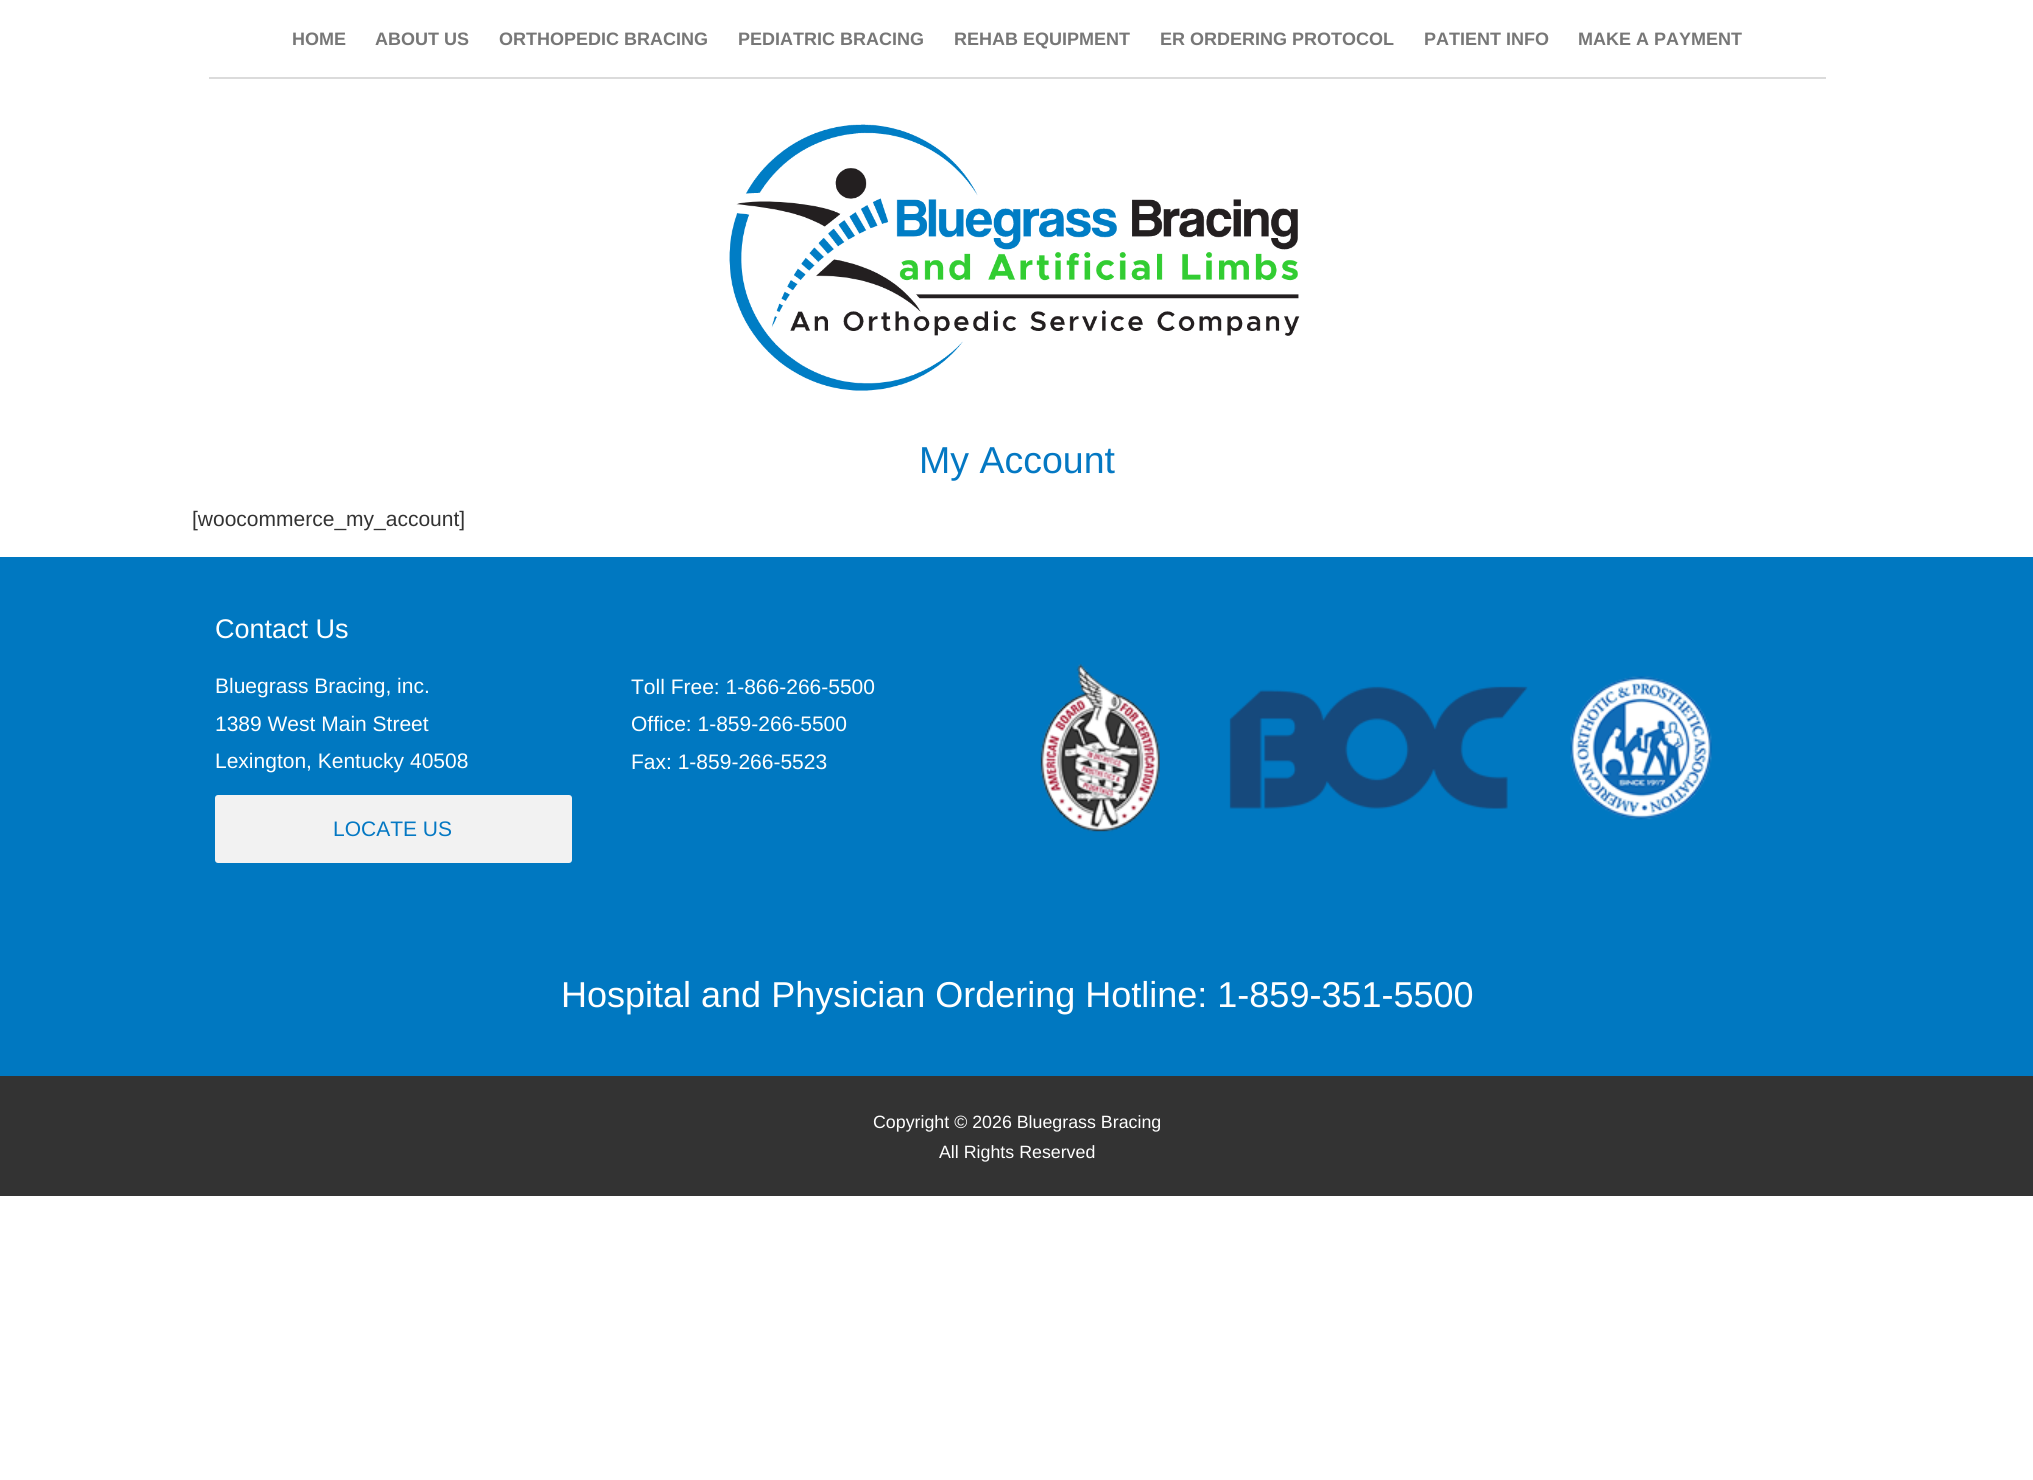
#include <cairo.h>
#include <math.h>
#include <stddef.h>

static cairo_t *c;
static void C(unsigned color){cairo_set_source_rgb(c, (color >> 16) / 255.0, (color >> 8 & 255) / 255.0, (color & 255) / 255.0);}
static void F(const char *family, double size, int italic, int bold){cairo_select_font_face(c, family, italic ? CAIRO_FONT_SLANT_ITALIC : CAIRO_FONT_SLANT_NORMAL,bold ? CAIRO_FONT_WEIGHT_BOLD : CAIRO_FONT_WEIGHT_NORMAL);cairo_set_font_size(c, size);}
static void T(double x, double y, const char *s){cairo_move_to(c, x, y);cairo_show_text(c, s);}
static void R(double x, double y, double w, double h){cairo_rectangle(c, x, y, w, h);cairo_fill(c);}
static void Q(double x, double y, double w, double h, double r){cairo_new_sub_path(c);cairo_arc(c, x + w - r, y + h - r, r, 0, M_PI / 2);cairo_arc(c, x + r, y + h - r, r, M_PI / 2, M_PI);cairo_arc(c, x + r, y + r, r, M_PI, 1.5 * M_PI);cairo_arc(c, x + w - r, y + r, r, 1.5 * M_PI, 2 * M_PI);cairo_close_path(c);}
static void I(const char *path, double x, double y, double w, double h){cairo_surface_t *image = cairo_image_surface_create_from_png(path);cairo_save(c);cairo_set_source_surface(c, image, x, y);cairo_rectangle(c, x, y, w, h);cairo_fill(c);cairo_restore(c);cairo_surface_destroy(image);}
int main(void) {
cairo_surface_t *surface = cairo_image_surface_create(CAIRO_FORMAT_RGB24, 2033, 1480);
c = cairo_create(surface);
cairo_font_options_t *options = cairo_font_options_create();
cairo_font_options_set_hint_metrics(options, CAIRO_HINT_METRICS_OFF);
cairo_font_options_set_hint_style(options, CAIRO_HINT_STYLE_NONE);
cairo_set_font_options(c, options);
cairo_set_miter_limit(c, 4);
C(0xffffff);
cairo_paint(c);
C(0xdbdbdb);
R(209,77,1617,2);
F("Liberation Sans",18,0,1);
C(0x777777);
T(292,45,"HOME");
T(375,45,"ABOUT US");
T(499,45,"ORTHOPEDIC BRACING");
T(738,45,"PEDIATRIC BRACING");
T(954,45,"REHAB EQUIPMENT");
T(1160,45,"ER ORDERING PROTOCOL");
T(1424,45,"PATIENT INFO");
T(1578,45,"MAKE A PAYMENT");
I("1.png",729,124,571,267);
F("Liberation Sans",37.5,0,0);
C(0x0478c3);
T(919,473,"My Account");
F("Liberation Sans",21,0,0);
C(0x333333);
T(192,526,"[woocommerce_my_account]");
C(0x0078c1);
R(0,557,2033,519);
F("Liberation Sans",27,0,0);
C(0xffffff);
T(215,638,"Contact Us");
F("Liberation Sans",21,0,0);
T(215,693,"Bluegrass Bracing, inc.");
T(215,731,"1389 West Main Street");
T(215,768,"Lexington, Kentucky 40508");
C(0xf2f2f2);
Q(215,795,357,68,3);
cairo_fill(c);
C(0x0478c3);
T(333,836,"LOCATE US");
C(0xffffff);
T(631,694,"Toll Free: 1-866-266-5500");
T(631,731,"Office: 1-859-266-5500");
T(631,769,"Fax: 1-859-266-5523");
I("2.png",1040,664,672,168);
F("Liberation Sans",36,0,0);
T(561,1007,"Hospital and Physician Ordering Hotline: 1-859-351-5500");
C(0x333333);
R(0,1076,2033,120);
F("Liberation Sans",17.8,0,0);
C(0xffffff);
T(873,1128,"Copyright © 2026 Bluegrass Bracing");
T(939,1158,"All Rights Reserved");
cairo_surface_write_to_png(surface, "o.png");
cairo_font_options_destroy(options);
cairo_destroy(c);
cairo_surface_destroy(surface);
return 0;
}
